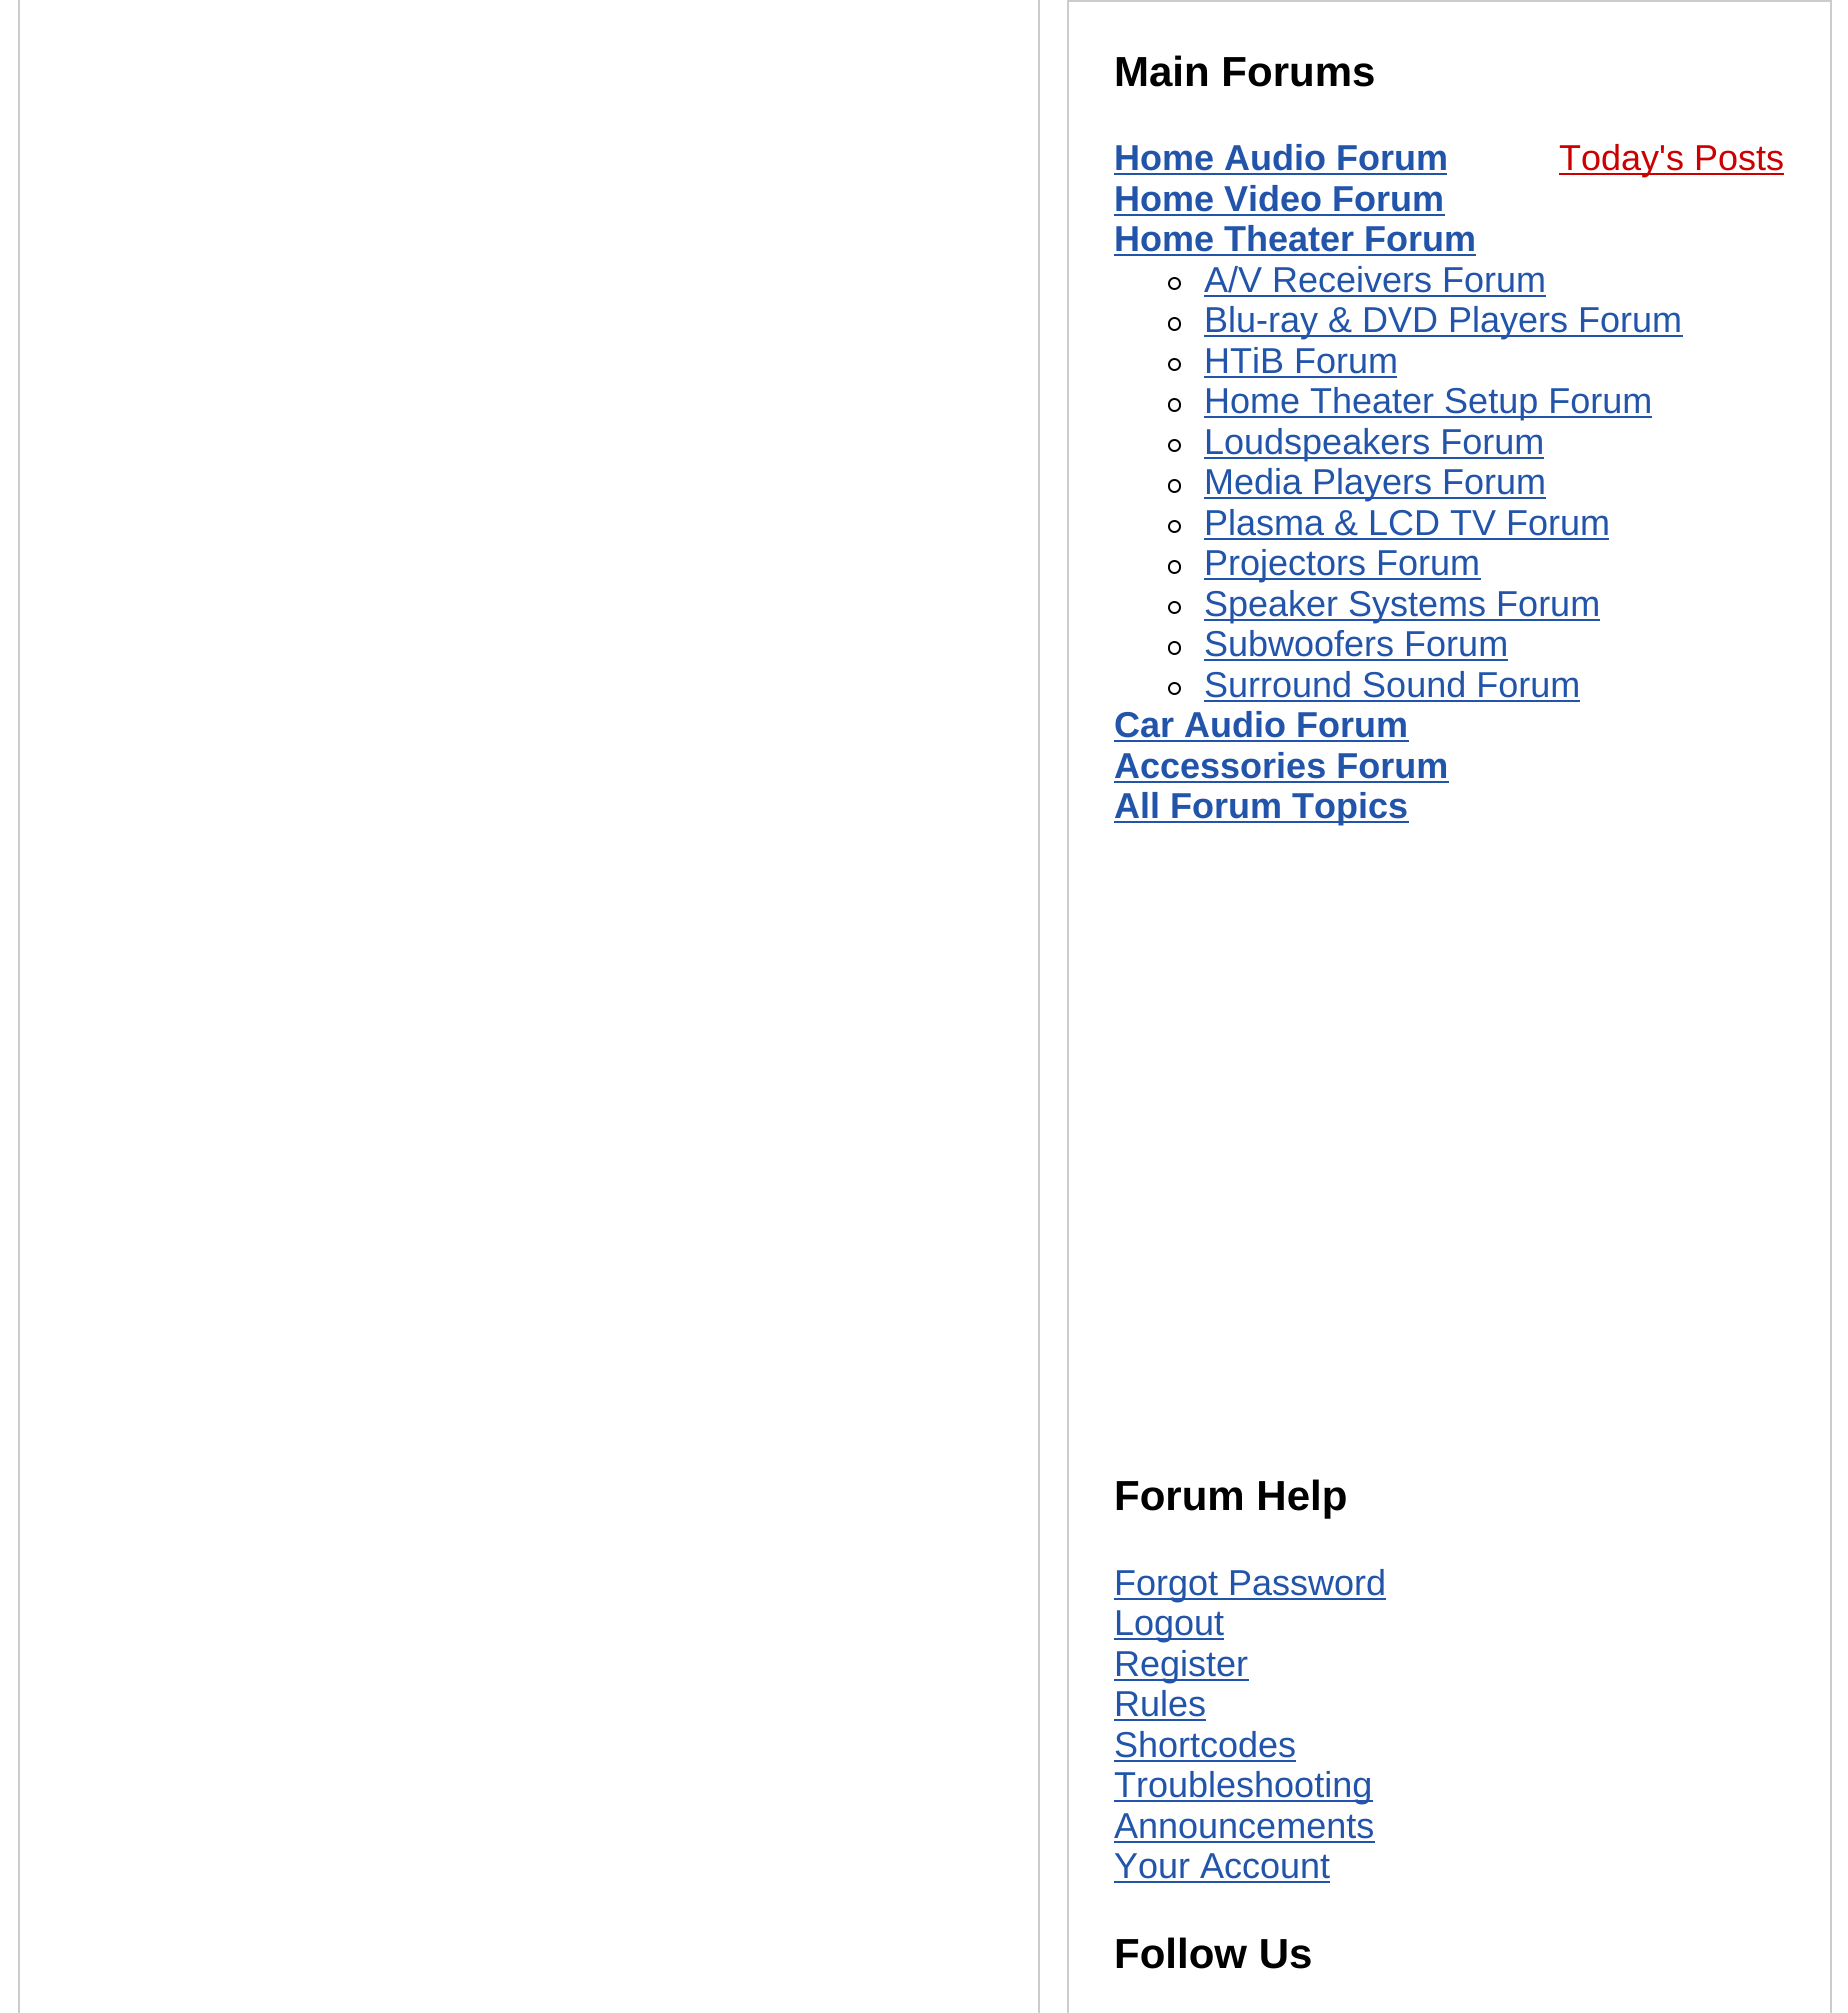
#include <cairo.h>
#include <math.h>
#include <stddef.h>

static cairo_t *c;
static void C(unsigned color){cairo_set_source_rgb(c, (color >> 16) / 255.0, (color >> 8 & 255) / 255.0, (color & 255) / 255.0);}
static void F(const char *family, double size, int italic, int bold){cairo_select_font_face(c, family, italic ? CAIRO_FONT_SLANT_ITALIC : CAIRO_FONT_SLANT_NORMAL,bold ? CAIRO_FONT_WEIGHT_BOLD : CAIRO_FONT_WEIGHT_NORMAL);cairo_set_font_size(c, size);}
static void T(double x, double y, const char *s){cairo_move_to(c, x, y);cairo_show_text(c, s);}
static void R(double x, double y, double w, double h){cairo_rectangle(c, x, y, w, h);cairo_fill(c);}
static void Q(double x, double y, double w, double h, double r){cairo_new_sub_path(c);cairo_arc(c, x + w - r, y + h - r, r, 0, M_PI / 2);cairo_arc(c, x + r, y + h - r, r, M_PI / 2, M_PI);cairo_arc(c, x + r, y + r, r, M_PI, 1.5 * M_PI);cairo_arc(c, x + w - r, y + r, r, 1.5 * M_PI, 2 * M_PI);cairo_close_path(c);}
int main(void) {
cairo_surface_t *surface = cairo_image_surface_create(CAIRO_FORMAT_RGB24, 1848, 2013);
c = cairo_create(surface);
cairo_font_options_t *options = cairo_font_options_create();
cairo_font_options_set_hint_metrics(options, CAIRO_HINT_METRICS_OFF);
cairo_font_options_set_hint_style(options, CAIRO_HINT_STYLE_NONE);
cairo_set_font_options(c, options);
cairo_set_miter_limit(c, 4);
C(0xffffff);
cairo_paint(c);
cairo_rectangle(c,19,-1,1020,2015);
C(0xcccccc);
cairo_stroke(c);
cairo_rectangle(c,1068,1,763,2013);
cairo_stroke(c);
F("Liberation Sans",42,0,1);
C(0x000000);
T(1114,86,"Main Forums");
F("Liberation Sans",36,0,1);
C(0x2255aa);
T(1114,170,"Home Audio Forum");
R(1114,173,333,2);
T(1114,211,"Home Video Forum");
R(1114,214,331,2);
T(1114,251,"Home Theater Forum");
R(1114,254,362,2);
cairo_new_path(c);
cairo_arc(c,1174.5,283.5,5.5,0,2 * M_PI);
C(0x000000);
cairo_stroke(c);
F("Liberation Sans",36,0,0);
C(0x2255aa);
T(1204,292,"A/V Receivers Forum");
R(1204,295,342,2);
Q(1169,318,11,12,5.5);
C(0x000000);
cairo_stroke(c);
C(0x2255aa);
R(1204,335,479,2);
T(1204,332,"Blu-ray & DVD Players Forum");
cairo_new_path(c);
cairo_arc(c,1174.5,364.5,5.5,0,2 * M_PI);
C(0x000000);
cairo_stroke(c);
C(0x2255aa);
T(1204,373,"HTiB Forum");
R(1204,376,193,2);
Q(1169,399,11,12,5.5);
C(0x000000);
cairo_stroke(c);
C(0x2255aa);
R(1204,416,448,2);
T(1204,413,"Home Theater Setup Forum");
cairo_new_path(c);
cairo_arc(c,1174.5,445.5,5.5,0,2 * M_PI);
C(0x000000);
cairo_stroke(c);
C(0x2255aa);
R(1204,457,340,2);
T(1204,454,"Loudspeakers Forum");
Q(1169,480,11,12,5.5);
C(0x000000);
cairo_stroke(c);
C(0x2255aa);
R(1204,497,342,2);
T(1204,494,"Media Players Forum");
cairo_new_path(c);
cairo_arc(c,1174.5,526.5,5.5,0,2 * M_PI);
C(0x000000);
cairo_stroke(c);
C(0x2255aa);
T(1204,535,"Plasma & LCD TV Forum");
R(1204,538,405,2);
Q(1169,561,11,12,5.5);
C(0x000000);
cairo_stroke(c);
C(0x2255aa);
R(1204,578,277,2);
T(1204,575,"Projectors Forum");
cairo_new_path(c);
cairo_arc(c,1174.5,607.5,5.5,0,2 * M_PI);
C(0x000000);
cairo_stroke(c);
C(0x2255aa);
R(1204,619,396,2);
T(1204,616,"Speaker Systems Forum");
Q(1169,642,11,12,5.5);
C(0x000000);
cairo_stroke(c);
C(0x2255aa);
T(1204,656,"Subwoofers Forum");
R(1204,659,304,2);
cairo_new_path(c);
cairo_arc(c,1174.5,688.5,5.5,0,2 * M_PI);
C(0x000000);
cairo_stroke(c);
C(0x2255aa);
T(1204,697,"Surround Sound Forum");
R(1204,700,376,2);
F("Liberation Sans",36,0,1);
T(1114,737,"Car Audio Forum");
R(1114,740,295,2);
T(1114,778,"Accessories Forum");
R(1114,781,335,2);
R(1114,821,295,2);
T(1114,818,"All Forum Topics");
C(0xcc0000);
R(1559,173,225,2);
F("Liberation Sans",36,0,0);
T(1559,170,"Today's Posts");
F("Liberation Sans",42,0,1);
C(0x000000);
T(1114,1510,"Forum Help");
C(0x2255aa);
R(1114,1598,272,2);
F("Liberation Sans",36,0,0);
T(1114,1595,"Forgot Password");
R(1114,1638,110,2);
T(1114,1635,"Logout");
R(1114,1679,135,2);
T(1114,1676,"Register");
T(1114,1716,"Rules");
R(1114,1719,92,2);
T(1114,1757,"Shortcodes");
R(1114,1760,182,2);
R(1114,1800,259,2);
T(1114,1797,"Troubleshooting");
T(1114,1838,"Announcements");
R(1114,1841,261,2);
T(1114,1878,"Your Account");
R(1114,1881,216,2);
F("Liberation Sans",42,0,1);
C(0x000000);
T(1114,1968,"Follow Us");
cairo_surface_write_to_png(surface, "o.png");
cairo_font_options_destroy(options);
cairo_destroy(c);
cairo_surface_destroy(surface);
return 0;
}
